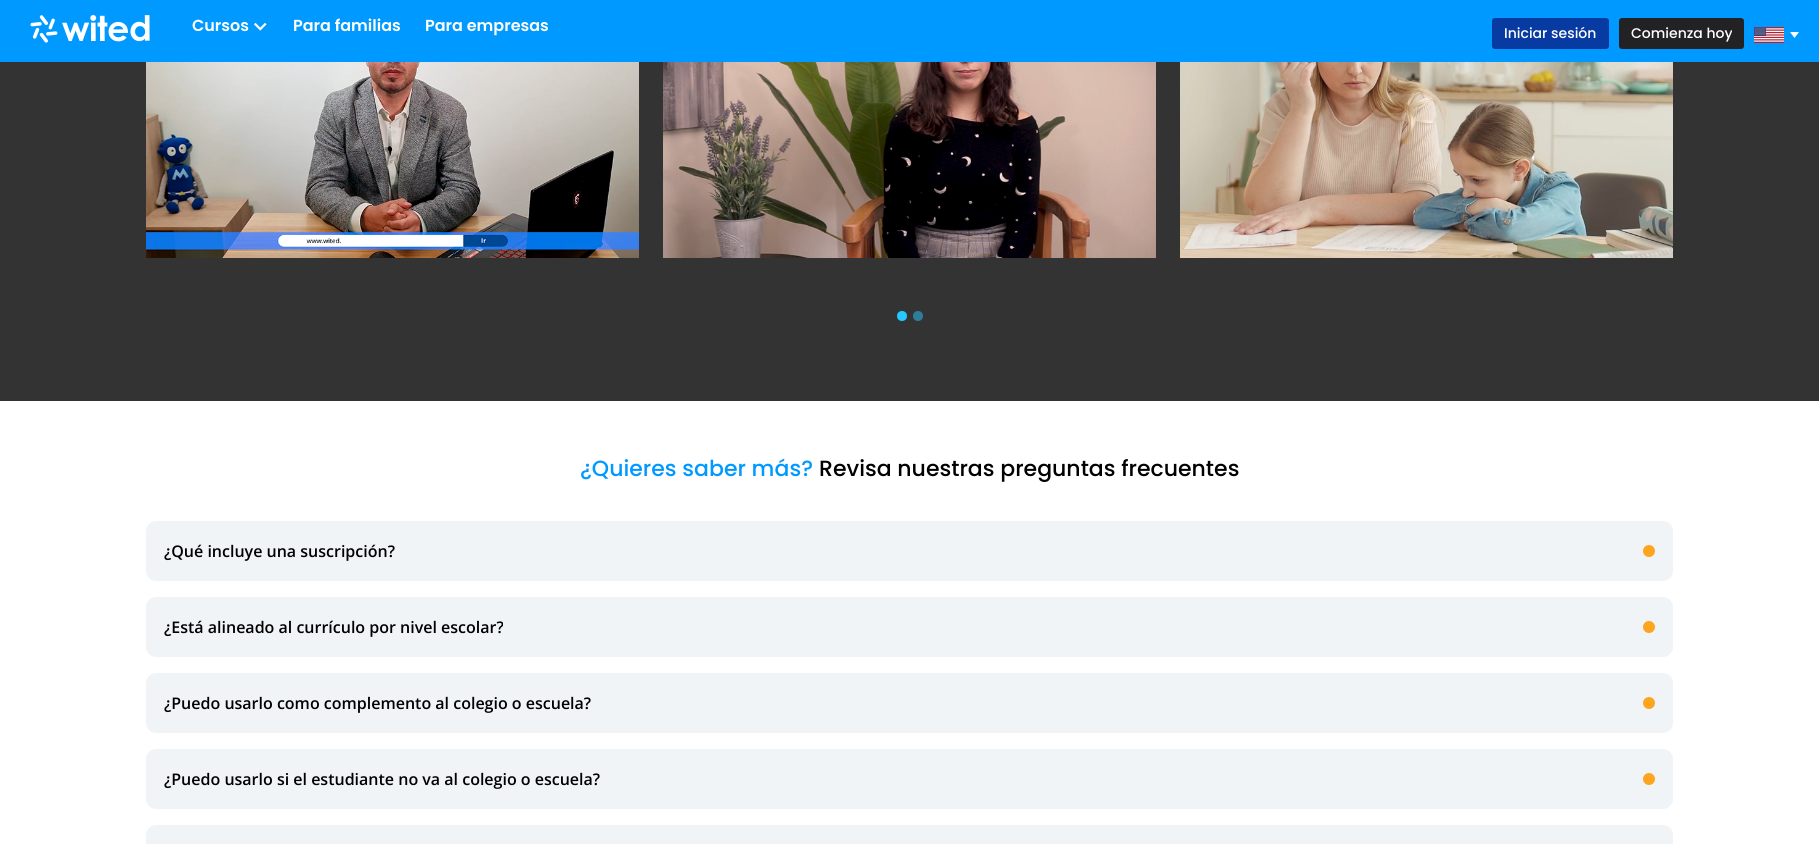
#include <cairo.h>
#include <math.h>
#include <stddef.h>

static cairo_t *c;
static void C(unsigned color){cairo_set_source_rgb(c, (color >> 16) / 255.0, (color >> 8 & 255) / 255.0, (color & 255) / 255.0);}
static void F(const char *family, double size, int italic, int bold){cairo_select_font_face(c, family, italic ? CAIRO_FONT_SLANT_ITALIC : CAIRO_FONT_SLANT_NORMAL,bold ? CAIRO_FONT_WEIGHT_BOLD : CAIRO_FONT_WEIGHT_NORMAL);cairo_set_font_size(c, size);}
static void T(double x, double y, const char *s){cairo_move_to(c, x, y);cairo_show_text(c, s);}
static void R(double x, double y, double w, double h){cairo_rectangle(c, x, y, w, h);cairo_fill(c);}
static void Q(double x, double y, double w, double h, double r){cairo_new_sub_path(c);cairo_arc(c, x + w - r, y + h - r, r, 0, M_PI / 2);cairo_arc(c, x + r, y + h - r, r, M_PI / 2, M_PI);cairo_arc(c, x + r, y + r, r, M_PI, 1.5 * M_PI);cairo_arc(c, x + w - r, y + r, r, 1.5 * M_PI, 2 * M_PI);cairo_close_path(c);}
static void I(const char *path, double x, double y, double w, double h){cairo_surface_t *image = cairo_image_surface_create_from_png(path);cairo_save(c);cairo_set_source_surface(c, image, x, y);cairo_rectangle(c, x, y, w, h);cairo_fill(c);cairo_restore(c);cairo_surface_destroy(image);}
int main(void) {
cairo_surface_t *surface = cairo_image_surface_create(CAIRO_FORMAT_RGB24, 1819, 844);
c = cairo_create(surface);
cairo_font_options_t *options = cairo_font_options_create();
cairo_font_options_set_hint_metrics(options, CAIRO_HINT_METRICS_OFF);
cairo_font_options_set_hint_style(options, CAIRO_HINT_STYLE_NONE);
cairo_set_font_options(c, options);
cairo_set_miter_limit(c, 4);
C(0xffffff);
cairo_paint(c);
C(0x0099ff);
R(0,0,1819,62);
I("1.png",30,15,120,28);
F("Poppins SemiBold",16,0,0);
C(0xffffff);
T(192,31,"Cursos");
I("2.png",254,22,13,9);
T(293,31,"Para familias");
T(425,31,"Para empresas");
C(0x083ba1);
Q(1492,18,117,31,3);
cairo_fill(c);
F("Poppins Medium",14,0,0);
C(0xffffff);
T(1504,38,"Iniciar sesión");
C(0x222225);
Q(1619,18,125,31,3);
cairo_fill(c);
C(0xffffff);
T(1631,38,"Comienza hoy");
I("3.png",1754,27,30,16);
cairo_new_path(c);
cairo_move_to(c,1794.5,38);
cairo_line_to(c,1790,32);
cairo_line_to(c,1799,32);
cairo_close_path(c);
cairo_fill(c);
C(0x333333);
R(0,62,1819,339);
I("4.png",146,62,493,196);
I("5.png",663,62,493,196);
I("6.png",1180,62,493,196);
C(0x26c9ff);
cairo_arc(c,902,316,5,0,2 * M_PI);
cairo_fill(c);
C(0x2d7e99);
cairo_arc(c,918,316,5,0,2 * M_PI);
cairo_fill(c);
F("Poppins Medium",22,0,0);
C(0x0099ff);
T(580,476,"¿Quieres saber más?");
C(0x000000);
T(819,476,"Revisa nuestras preguntas frecuentes");
C(0xf1f4f7);
Q(146,521,1527,60,10);
cairo_fill(c);
F("Open Sans SemiBold",16,0,0);
C(0x000000);
T(164,557,"¿Qué incluye una suscripción?");
C(0xfea51f);
cairo_new_path(c);
cairo_arc(c,1649,551,6,0,2 * M_PI);
cairo_fill(c);
C(0xf1f4f7);
Q(146,597,1527,60,10);
cairo_fill(c);
C(0x000000);
T(164,633,"¿Está alineado al currículo por nivel escolar?");
C(0xfea51f);
cairo_new_path(c);
cairo_arc(c,1649,627,6,0,2 * M_PI);
cairo_fill(c);
C(0xf1f4f7);
Q(146,673,1527,60,10);
cairo_fill(c);
C(0x000000);
T(164,709,"¿Puedo usarlo como complemento al colegio o escuela?");
C(0xfea51f);
cairo_new_path(c);
cairo_arc(c,1649,703,6,0,2 * M_PI);
cairo_fill(c);
C(0xf1f4f7);
Q(146,749,1527,60,10);
cairo_fill(c);
C(0x000000);
T(164,785,"¿Puedo usarlo si el estudiante no va al colegio o escuela?");
C(0xfea51f);
cairo_new_path(c);
cairo_arc(c,1649,779,6,0,2 * M_PI);
cairo_fill(c);
C(0xf1f4f7);
Q(146,825,1527,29,10);
cairo_fill(c);
cairo_surface_write_to_png(surface, "o.png");
cairo_font_options_destroy(options);
cairo_destroy(c);
cairo_surface_destroy(surface);
return 0;
}
